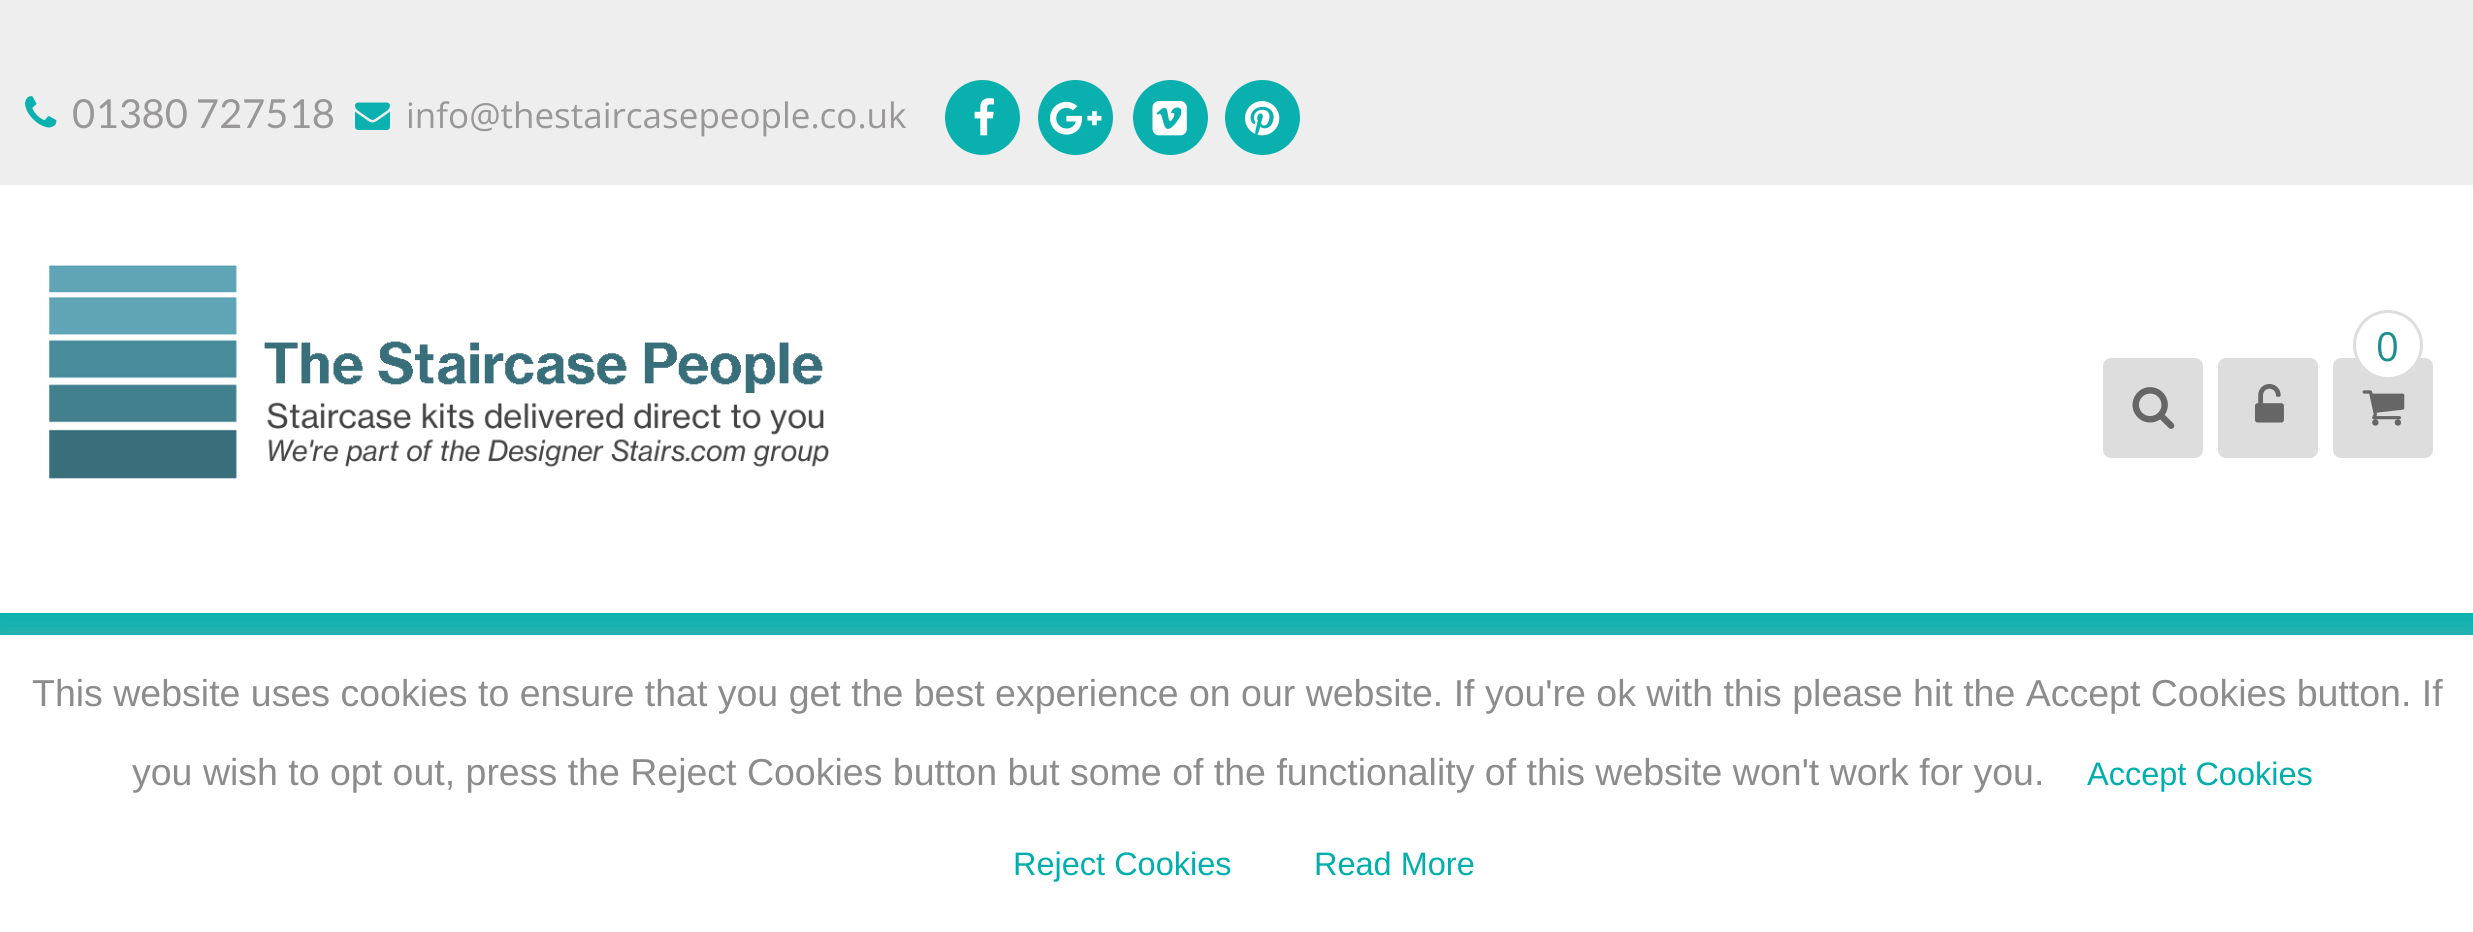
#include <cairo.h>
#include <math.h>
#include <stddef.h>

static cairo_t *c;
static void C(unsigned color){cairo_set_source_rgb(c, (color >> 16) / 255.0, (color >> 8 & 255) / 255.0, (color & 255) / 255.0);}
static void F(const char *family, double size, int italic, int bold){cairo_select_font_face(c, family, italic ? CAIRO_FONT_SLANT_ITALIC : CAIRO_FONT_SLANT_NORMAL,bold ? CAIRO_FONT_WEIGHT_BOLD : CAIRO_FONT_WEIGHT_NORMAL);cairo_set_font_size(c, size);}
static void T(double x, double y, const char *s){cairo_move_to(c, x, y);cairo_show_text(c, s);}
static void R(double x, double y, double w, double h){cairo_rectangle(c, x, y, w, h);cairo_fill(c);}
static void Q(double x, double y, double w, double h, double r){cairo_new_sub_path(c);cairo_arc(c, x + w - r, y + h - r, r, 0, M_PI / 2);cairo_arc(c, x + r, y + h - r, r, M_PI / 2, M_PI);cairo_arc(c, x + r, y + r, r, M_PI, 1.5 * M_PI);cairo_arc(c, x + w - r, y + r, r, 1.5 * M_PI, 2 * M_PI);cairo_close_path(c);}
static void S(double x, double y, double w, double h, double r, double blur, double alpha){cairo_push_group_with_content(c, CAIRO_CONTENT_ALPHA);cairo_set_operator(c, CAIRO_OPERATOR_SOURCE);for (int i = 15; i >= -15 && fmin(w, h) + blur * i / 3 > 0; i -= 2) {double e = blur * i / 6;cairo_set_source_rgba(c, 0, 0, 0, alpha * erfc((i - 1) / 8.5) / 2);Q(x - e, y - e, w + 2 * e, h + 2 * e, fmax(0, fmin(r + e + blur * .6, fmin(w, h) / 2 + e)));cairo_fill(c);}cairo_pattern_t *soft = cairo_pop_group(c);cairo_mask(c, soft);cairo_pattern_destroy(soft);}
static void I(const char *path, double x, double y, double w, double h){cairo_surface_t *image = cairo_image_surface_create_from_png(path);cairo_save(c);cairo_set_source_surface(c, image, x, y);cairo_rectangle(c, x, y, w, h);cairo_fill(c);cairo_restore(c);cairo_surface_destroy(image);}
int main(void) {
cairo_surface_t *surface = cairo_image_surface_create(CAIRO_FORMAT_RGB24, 2473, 932);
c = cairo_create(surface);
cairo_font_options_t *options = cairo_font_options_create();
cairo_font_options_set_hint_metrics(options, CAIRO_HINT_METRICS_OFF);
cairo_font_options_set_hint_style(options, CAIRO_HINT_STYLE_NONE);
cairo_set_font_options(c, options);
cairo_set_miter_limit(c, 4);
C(0xffffff);
cairo_paint(c);
C(0xeeeeee);
R(0,0,2473,185);
I("1.png",25,96,32,32);
F("Lato",40,0,0);
C(0x999797);
T(72,128,"01380 727518");
I("2.png",355,102,35,28);
F("Open Sans",35,0,0);
T(406,128,"info@thestaircasepeople.co.uk");
C(0x0ab0ae);
cairo_new_path(c);
cairo_arc(c,982.5,117.5,37.5,0,2 * M_PI);
cairo_fill(c);
I("3.png",974,98,20,38);
cairo_arc(c,1075.5,117.5,37.5,0,2 * M_PI);
cairo_fill(c);
I("4.png",1050,101,52,34);
cairo_arc(c,1170.5,117.5,37.5,0,2 * M_PI);
cairo_fill(c);
I("5.png",1152,101,35,35);
cairo_arc(c,1262.5,117.5,37.5,0,2 * M_PI);
cairo_fill(c);
I("6.png",1245,101,35,35);
I("7.png",49,265,781,214);
C(0xdddddd);
Q(2333,358,100,100,8);
cairo_fill(c);
C(0xffffff);
cairo_arc(c,2388,345,33.5,0,2 * M_PI);
cairo_fill_preserve(c);
C(0xdddddd);
cairo_set_line_width(c,3);
cairo_stroke(c);
F("Open Sans",40,0,0);
C(0x1b8e8d);
T(2376,361,"0");
I("8.png",2362,390,43,36);
C(0xdddddd);
Q(2103,358,100,100,8);
cairo_fill(c);
I("9.png",2132,387,43,42);
Q(2218,358,100,100,8);
cairo_fill(c);
I("10.png",2255,383,29,40);
C(0x0bb1af);
R(0,613,2473,22);
C(0xacabab);
S(0,633,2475,297,0,12.5,.3);
C(0xffffff);
R(0,635,2473,297);
F("Liberation Sans",37.5,0,0);
C(0x8c8c8c);
T(32,706,"This website uses cookies to ensure that you get the best experience on our website. If you're ok with this please hit the Accept Cookies button. If");
T(132,785,"you wish to opt out, press the Reject Cookies button but some of the functionality of this website won't work for you.");
F("Liberation Sans",32.5,0,0);
C(0x00afad);
T(2087,785,"Accept Cookies");
T(1013,875,"Reject Cookies");
T(1314,875,"Read More");
cairo_surface_write_to_png(surface, "o.png");
cairo_font_options_destroy(options);
cairo_destroy(c);
cairo_surface_destroy(surface);
return 0;
}
